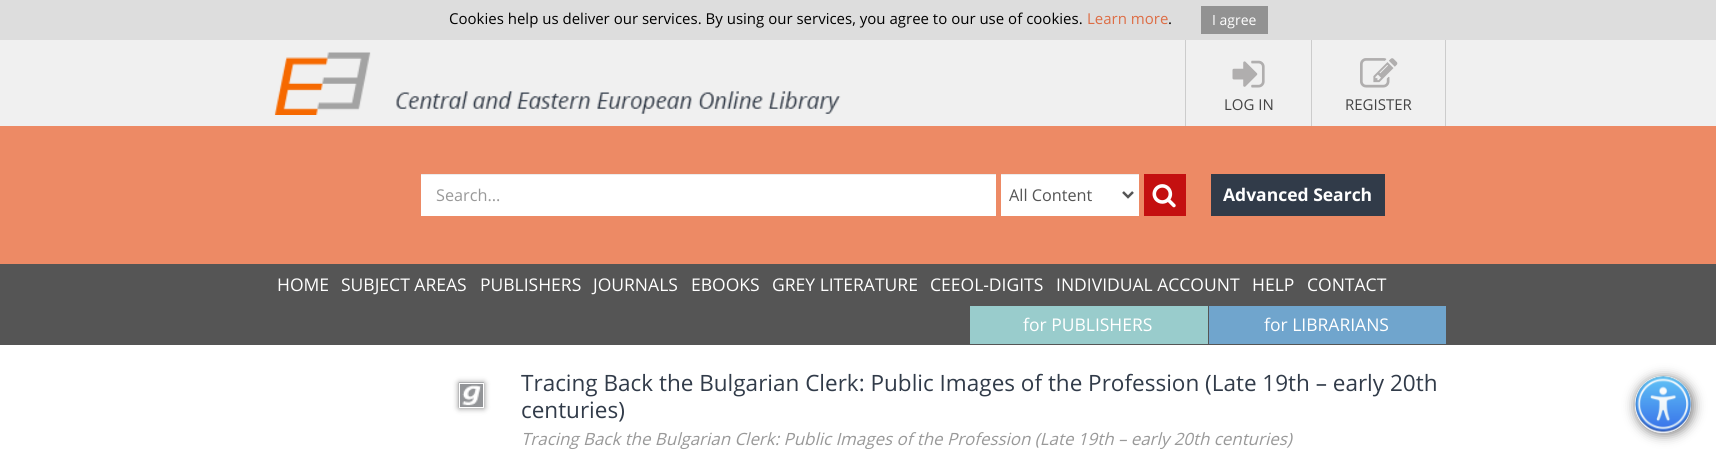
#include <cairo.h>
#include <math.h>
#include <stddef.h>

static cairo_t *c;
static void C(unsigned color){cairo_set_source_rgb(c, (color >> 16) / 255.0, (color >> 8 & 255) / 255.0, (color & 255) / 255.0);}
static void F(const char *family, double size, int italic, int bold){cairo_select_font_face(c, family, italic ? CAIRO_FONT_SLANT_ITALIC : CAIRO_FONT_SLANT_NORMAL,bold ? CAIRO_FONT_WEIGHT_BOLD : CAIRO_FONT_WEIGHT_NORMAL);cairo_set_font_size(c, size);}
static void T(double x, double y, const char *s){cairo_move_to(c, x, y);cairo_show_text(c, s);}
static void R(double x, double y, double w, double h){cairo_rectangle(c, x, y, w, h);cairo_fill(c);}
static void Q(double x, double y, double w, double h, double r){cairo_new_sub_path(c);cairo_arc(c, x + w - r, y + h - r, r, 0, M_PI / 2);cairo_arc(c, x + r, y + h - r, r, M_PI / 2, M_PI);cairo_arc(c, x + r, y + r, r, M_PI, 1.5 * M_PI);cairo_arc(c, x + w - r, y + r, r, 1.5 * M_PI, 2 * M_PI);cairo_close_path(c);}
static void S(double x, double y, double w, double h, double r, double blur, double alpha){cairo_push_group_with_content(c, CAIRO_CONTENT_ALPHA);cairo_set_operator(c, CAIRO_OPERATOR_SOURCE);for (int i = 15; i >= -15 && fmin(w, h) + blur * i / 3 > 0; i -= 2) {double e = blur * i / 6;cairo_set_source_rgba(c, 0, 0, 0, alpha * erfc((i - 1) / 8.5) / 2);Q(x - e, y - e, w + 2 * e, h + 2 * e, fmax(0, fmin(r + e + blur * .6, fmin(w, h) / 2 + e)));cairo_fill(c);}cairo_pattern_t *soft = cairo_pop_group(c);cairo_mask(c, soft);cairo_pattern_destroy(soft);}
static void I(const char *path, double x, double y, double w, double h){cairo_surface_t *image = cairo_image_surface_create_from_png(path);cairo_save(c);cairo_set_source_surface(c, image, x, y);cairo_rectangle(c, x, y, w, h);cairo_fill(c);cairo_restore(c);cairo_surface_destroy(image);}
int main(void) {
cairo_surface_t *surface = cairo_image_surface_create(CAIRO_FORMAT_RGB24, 1716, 463);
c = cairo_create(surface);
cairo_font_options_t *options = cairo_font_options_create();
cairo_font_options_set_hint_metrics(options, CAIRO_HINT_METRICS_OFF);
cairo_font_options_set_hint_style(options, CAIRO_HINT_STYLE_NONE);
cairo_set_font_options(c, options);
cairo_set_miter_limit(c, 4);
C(0xffffff);
cairo_paint(c);
C(0xdddddd);
R(0,0,1716,40);
F("Open Sans",15,0,0);
C(0x000000);
T(449,24,"Cookies help us deliver our services. By using our services, you agree to our use of cookies.");
C(0xdd6d45);
T(1087,24,"Learn more");
C(0x000000);
T(1168,24,".");
C(0x929292);
R(1201,6,67,28);
F("Open Sans",14,0,0);
C(0xffffff);
T(1212,25,"I agree");
C(0xf0f0f0);
R(0,40,1716,86);
I("1.png",274,52,567,63);
C(0xcccccc);
R(1311,40,1,86);
R(1185,40,1,86);
I("2.png",1232,60,33,28);
F("Open Sans",15,0,0);
C(0x444444);
T(1224,110,"LOG IN");
C(0xcccccc);
R(1445,40,1,86);
I("3.png",1360,58,38,30);
C(0x444444);
T(1345,110,"REGISTER");
C(0xed8a65);
R(0,126,1716,138);
C(0xffffff);
R(421,175,575,41);
C(0xececec);
R(421,174,575,1);
F("Open Sans",16.25,0,0);
C(0x999999);
T(436,201,"Search...");
C(0xffffff);
R(1001,175,138,41);
C(0xececec);
R(1001,174,138,1);
cairo_new_path(c);
cairo_move_to(c,1123,192);
cairo_line_to(c,1128,197);
cairo_line_to(c,1133,192);
C(0x555555);
cairo_set_line_width(c,2.5);
cairo_stroke(c);
T(1009,201,"All Content");
C(0xc41010);
R(1144,174,42,42);
I("4.png",1152,184,24,24);
C(0x313b49);
R(1211,174,174,42);
F("Open Sans",17.5,0,1);
C(0xffffff);
T(1223,201,"Advanced Search");
C(0x555555);
R(0,264,1716,81);
F("Open Sans",17.5,0,0);
C(0xffffff);
T(277,291,"HOME");
T(341,291,"SUBJECT AREAS");
T(480,291,"PUBLISHERS");
T(593,291,"JOURNALS");
T(691,291,"EBOOKS");
T(772,291,"GREY LITERATURE");
T(930,291,"CEEOL-DIGITS");
T(1056,291,"INDIVIDUAL ACCOUNT");
T(1252,291,"HELP");
T(1307,291,"CONTACT");
C(0x99cccc);
R(970,306,238,38);
C(0xffffff);
T(1023,331,"for PUBLISHERS");
C(0x70a5cd);
R(1209,306,237,38);
C(0xffffff);
T(1264,331,"for LIBRARIANS");
C(0x000000);
S(459,383,25,25,0,3,.5);
I("5.png",458,382,26,26);
cairo_rectangle(c,459.5,383.5,24,24);
C(0xffffff);
cairo_set_line_width(c,1);
cairo_stroke(c);
F("Open Sans",22.5,0,0);
C(0x313b49);
T(521,391,"Tracing Back the Bulgarian Clerk: Public Images of the Profession (Late 19th – early 20th");
T(521,418,"centuries)");
F("Open Sans",16.9,1,0);
C(0x999999);
T(521,445,"Tracing Back the Bulgarian Clerk: Public Images of the Profession (Late 19th – early 20th centuries)");
cairo_save(c);
cairo_set_fill_rule(c,CAIRO_FILL_RULE_EVEN_ODD);
cairo_new_path(c);
cairo_move_to(c,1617,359);
cairo_line_to(c,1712,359);
cairo_line_to(c,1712,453);
cairo_line_to(c,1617,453);
cairo_close_path(c);
cairo_move_to(c,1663,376);
cairo_curve_to(c,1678.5,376,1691,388.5,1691,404);
cairo_line_to(c,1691,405);
cairo_curve_to(c,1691,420.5,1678.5,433,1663,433);
cairo_curve_to(c,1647.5,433,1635,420.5,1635,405);
cairo_line_to(c,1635,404);
cairo_curve_to(c,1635,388.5,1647.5,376,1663,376);
cairo_close_path(c);
cairo_clip(c);
C(0x717070);
S(1636,378,57,56,28,6,1);
cairo_restore(c);
I("6.png",1635,376,57,57);
cairo_surface_write_to_png(surface, "o.png");
cairo_font_options_destroy(options);
cairo_destroy(c);
cairo_surface_destroy(surface);
return 0;
}
